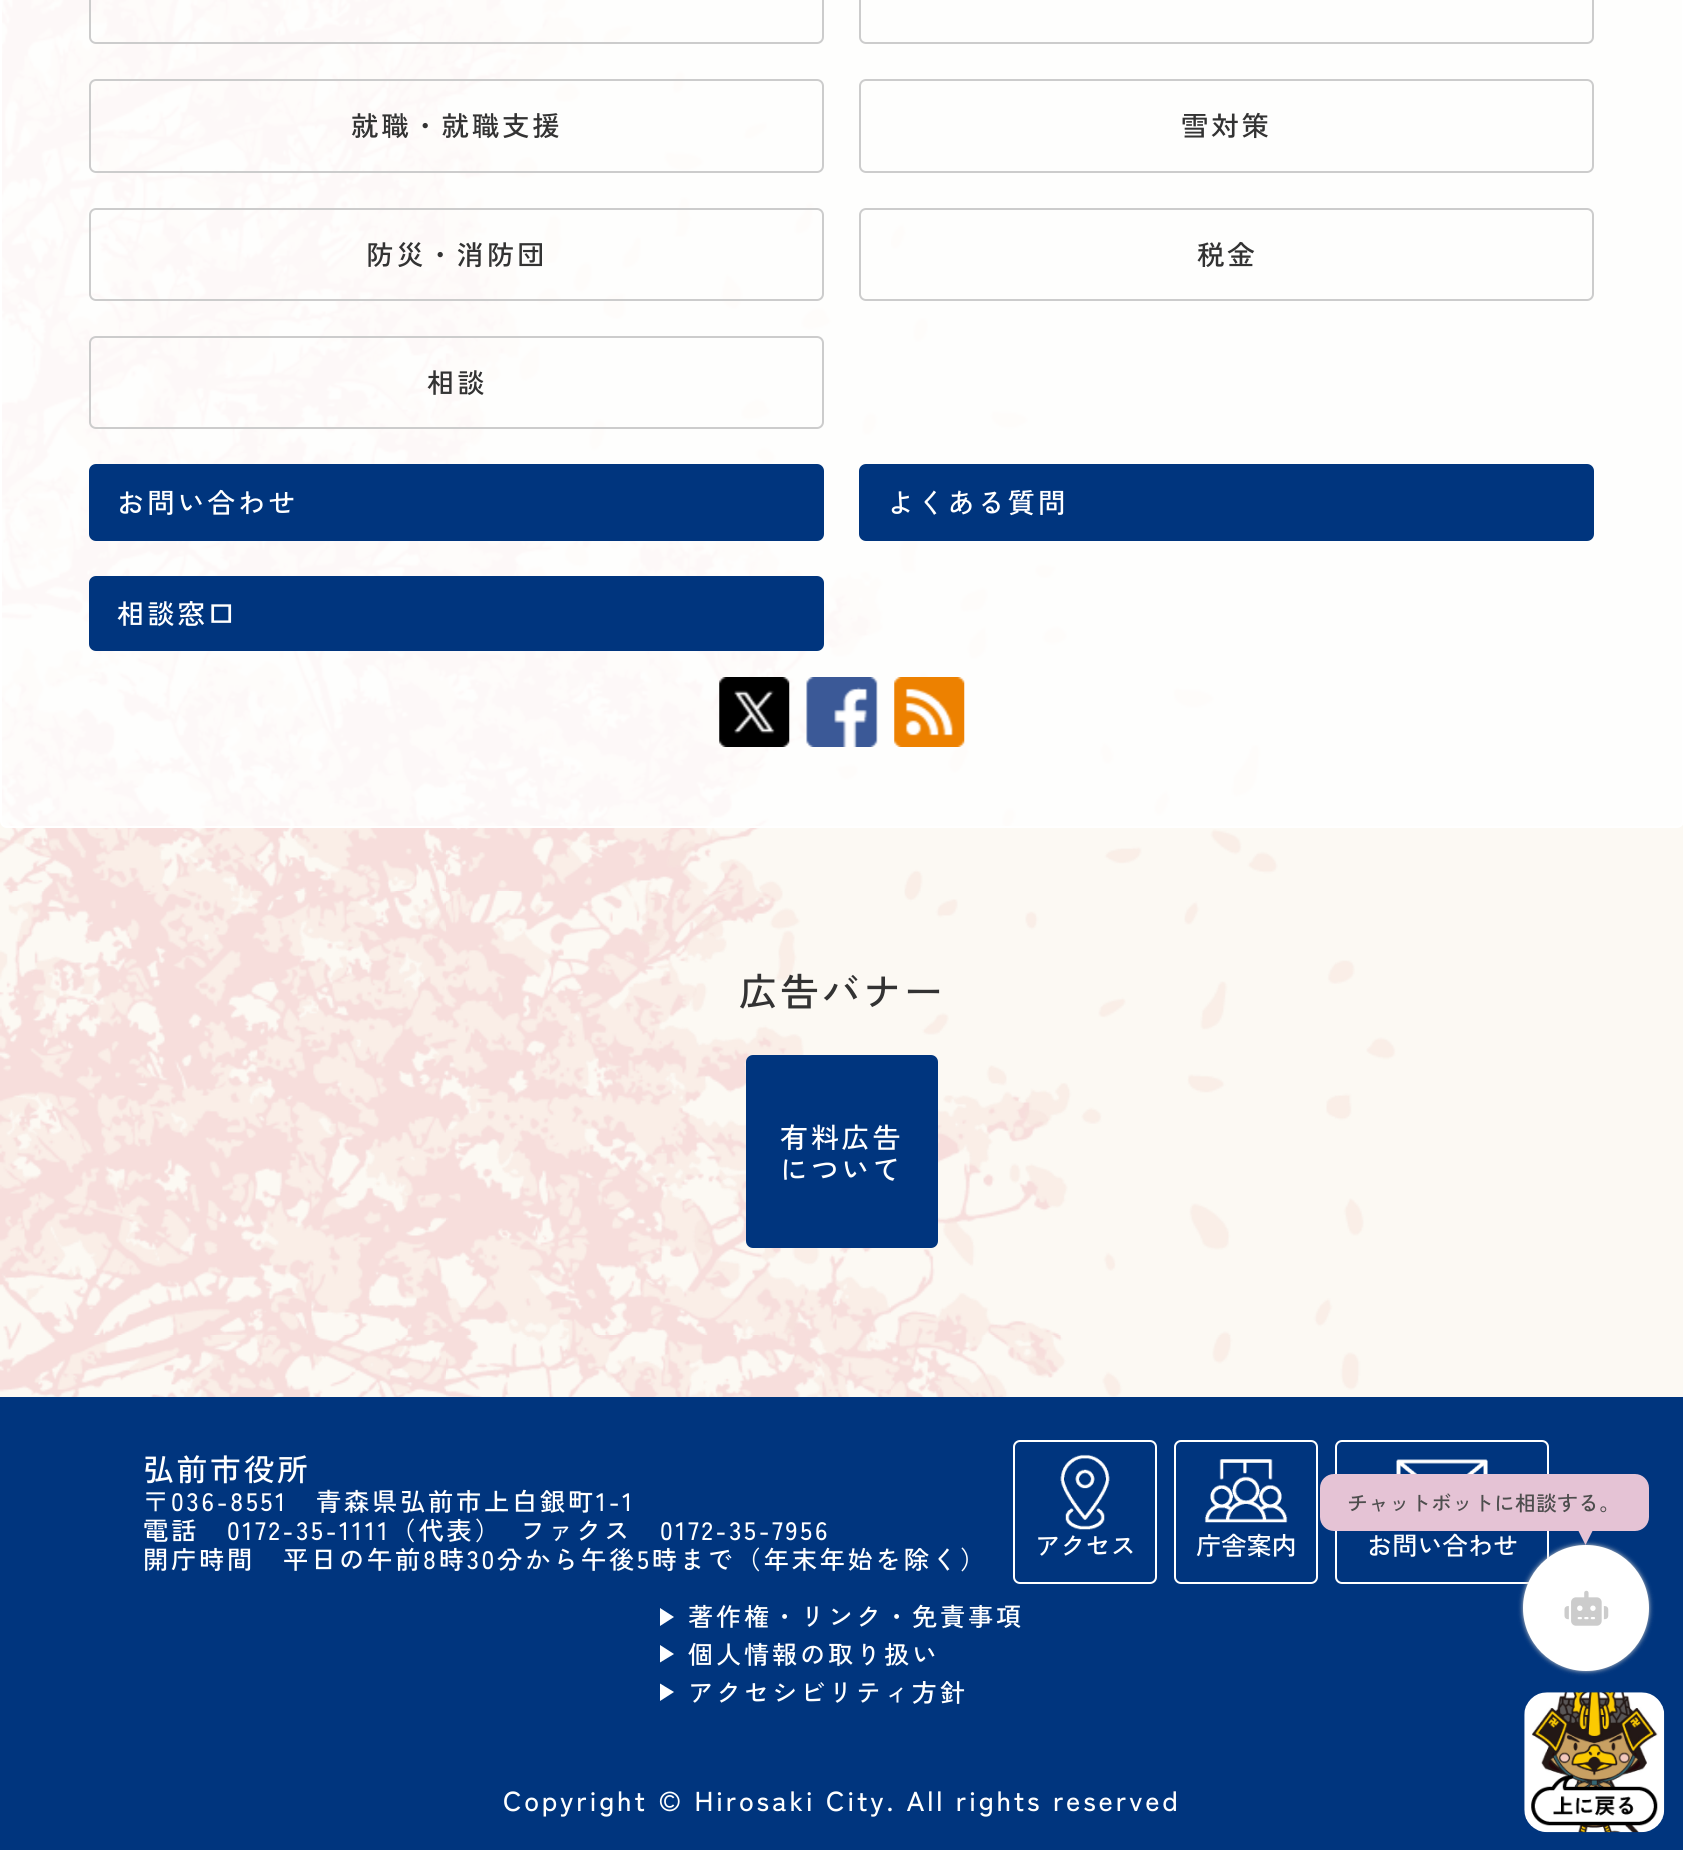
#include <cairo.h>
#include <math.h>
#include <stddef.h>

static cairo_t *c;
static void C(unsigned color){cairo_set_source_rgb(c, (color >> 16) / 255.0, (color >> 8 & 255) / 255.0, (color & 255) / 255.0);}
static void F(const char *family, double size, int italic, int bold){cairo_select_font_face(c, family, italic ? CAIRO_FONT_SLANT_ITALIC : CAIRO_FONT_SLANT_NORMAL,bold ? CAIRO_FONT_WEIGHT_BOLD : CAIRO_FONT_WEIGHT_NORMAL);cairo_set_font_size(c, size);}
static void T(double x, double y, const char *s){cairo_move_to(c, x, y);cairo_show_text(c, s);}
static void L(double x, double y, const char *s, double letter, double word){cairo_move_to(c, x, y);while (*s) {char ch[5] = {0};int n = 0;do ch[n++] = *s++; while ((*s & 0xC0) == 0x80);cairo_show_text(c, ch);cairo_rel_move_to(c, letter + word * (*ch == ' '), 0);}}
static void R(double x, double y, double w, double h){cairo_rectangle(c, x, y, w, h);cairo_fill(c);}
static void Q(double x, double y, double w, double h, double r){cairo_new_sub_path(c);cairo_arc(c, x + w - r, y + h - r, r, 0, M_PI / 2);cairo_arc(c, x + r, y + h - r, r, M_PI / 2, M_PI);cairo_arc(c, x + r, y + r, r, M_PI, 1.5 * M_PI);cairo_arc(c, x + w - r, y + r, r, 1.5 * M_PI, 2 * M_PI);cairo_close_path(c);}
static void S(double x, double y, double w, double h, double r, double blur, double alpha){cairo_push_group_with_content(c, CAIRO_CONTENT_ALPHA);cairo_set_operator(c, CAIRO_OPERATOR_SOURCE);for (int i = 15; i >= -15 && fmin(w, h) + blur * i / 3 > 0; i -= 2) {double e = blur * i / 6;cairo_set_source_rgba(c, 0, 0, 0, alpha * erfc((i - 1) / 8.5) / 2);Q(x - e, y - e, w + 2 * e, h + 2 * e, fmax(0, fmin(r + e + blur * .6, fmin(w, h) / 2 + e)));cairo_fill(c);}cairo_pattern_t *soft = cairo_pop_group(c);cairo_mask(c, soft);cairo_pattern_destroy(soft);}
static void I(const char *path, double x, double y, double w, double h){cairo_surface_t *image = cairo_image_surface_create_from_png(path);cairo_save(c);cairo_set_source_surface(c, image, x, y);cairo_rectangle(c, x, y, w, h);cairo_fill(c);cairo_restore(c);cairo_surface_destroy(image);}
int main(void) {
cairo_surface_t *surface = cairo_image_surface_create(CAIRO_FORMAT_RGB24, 1683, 1850);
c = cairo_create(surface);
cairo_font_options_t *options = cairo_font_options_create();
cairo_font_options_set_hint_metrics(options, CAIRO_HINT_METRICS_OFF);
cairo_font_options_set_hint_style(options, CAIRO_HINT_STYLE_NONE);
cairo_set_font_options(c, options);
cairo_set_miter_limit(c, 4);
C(0xfcf9f3);
cairo_paint(c);
I("1.png",0,0,1396,1397);
cairo_set_source_rgba(c,1,1,1,0.8);
Q(1,-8,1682,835,6);
cairo_fill_preserve(c);
C(0xffffff);
cairo_stroke(c);
Q(90,-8,733,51,6);
C(0xcccccc);
cairo_stroke(c);
Q(860,-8,733,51,6);
cairo_stroke(c);
Q(90,80,733,92,6);
cairo_stroke(c);
F("Zen Kaku Gothic New Medium",27.4,0,0);
C(0x333333);
L(351,136,"就職・就職支援",2.8,0);
Q(860,80,733,92,6);
C(0xcccccc);
cairo_stroke(c);
C(0x333333);
L(1181,136,"雪対策",2.8,0);
Q(90,209,733,91,6);
C(0xcccccc);
cairo_stroke(c);
C(0x333333);
L(366,265,"防災・消防団",2.8,0);
Q(860,209,733,91,6);
C(0xcccccc);
cairo_stroke(c);
C(0x333333);
L(1197,265,"税金",2.8,0);
Q(90,337,733,91,6);
C(0xcccccc);
cairo_stroke(c);
C(0x333333);
L(427,393,"相談",2.8,0);
C(0x00357e);
Q(90,465,733,75,6);
cairo_fill_preserve(c);
cairo_stroke(c);
C(0xffffff);
L(117,513,"お問い合わせ",2.8,0);
C(0x00357e);
Q(860,465,733,75,6);
cairo_fill_preserve(c);
cairo_stroke(c);
C(0xffffff);
L(887,513,"よくある質問",2.8,0);
C(0x00357e);
Q(90,577,733,73,6);
cairo_fill_preserve(c);
cairo_stroke(c);
C(0xffffff);
L(117,624,"相談窓口",2.8,0);
I("2.png",719,677,71,70);
I("3.png",806,677,72,70);
I("4.png",894,677,71,70);
F("Zen Kaku Gothic New Medium",38.5,0,0);
C(0x333333);
L(739,1006,"広告バナー",2.8,0);
C(0x00357e);
Q(746,1055,192,193,7);
cairo_fill(c);
F("Zen Kaku Gothic New Medium",28,0,0);
C(0xffffff);
L(780,1148,"有料広告",2.8,0);
L(780,1180,"について",2.8,0);
C(0x00357e);
R(0,1397,1683,453);
F("Zen Kaku Gothic New Medium",30.75,0,0);
C(0xffffff);
L(143,1481,"弘前市役所",2.8,0);
F("Zen Kaku Gothic New Medium",25.2,0,0);
L(143,1511,"〒036-8551　青森県弘前市上白銀町1-1",2.8,0);
L(143,1540,"電話　0172-35-1111（代表）",2.8,0);
L(520,1540,"ファクス　0172-35-7956",2.8,0);
L(143,1569,"開庁時間　平日の午前8時30分から午後5時まで（年末年始を除く）",2.8,0);
I("5.png",1060,1454,50,76);
Q(1014,1441,142,142,6);
cairo_stroke(c);
T(1035,1555,"アクセス");
I("6.png",1204,1459,84,64);
Q(1175,1441,142,142,6);
cairo_stroke(c);
T(1196,1555,"庁舎案内");
I("7.png",1396,1459,92,15);
Q(1336,1441,212,142,6);
cairo_stroke(c);
T(1367,1555,"お問い合わせ");
cairo_new_path(c);
cairo_move_to(c,660,1626);
cairo_line_to(c,660,1608);
cairo_line_to(c,674,1617);
cairo_close_path(c);
cairo_fill(c);
L(688,1626,"著作権・リンク・免責事項",2.8,0);
cairo_new_path(c);
cairo_move_to(c,660,1662.5);
cairo_line_to(c,660,1645);
cairo_line_to(c,674,1654);
cairo_close_path(c);
cairo_fill(c);
L(688,1664,"個人情報の取り扱い",2.8,0);
cairo_new_path(c);
cairo_move_to(c,660,1701);
cairo_line_to(c,660,1683.5);
cairo_line_to(c,674,1692);
cairo_close_path(c);
cairo_fill(c);
L(688,1702,"アクセシビリティ方針",2.8,0);
F("Zen Kaku Gothic New Medium",27.4,0,0);
L(503,1811,"Copyright © Hirosaki City. All rights reserved",2.8,0);
C(0xcccccc);
S(1523,1545,126,126,63,2.5,1);
C(0xffffff);
cairo_arc(c,1586,1608,63,0,2 * M_PI);
cairo_fill(c);
C(0xe5c3d5);
Q(1320,1474,329,57,14);
cairo_fill(c);
F("Zen Kaku Gothic New Medium",21,0,0);
C(0x4d4d4d);
T(1347,1511,"チャットボットに相談する。");
C(0xe5c3d5);
cairo_new_path(c);
cairo_move_to(c,1578.5,1531);
cairo_line_to(c,1592.5,1531);
cairo_line_to(c,1585.5,1545);
cairo_close_path(c);
cairo_fill(c);
I("8.png",1564,1590,45,36);
I("9.png",1524,1692,141,141);
cairo_surface_write_to_png(surface, "o.png");
cairo_font_options_destroy(options);
cairo_destroy(c);
cairo_surface_destroy(surface);
return 0;
}
